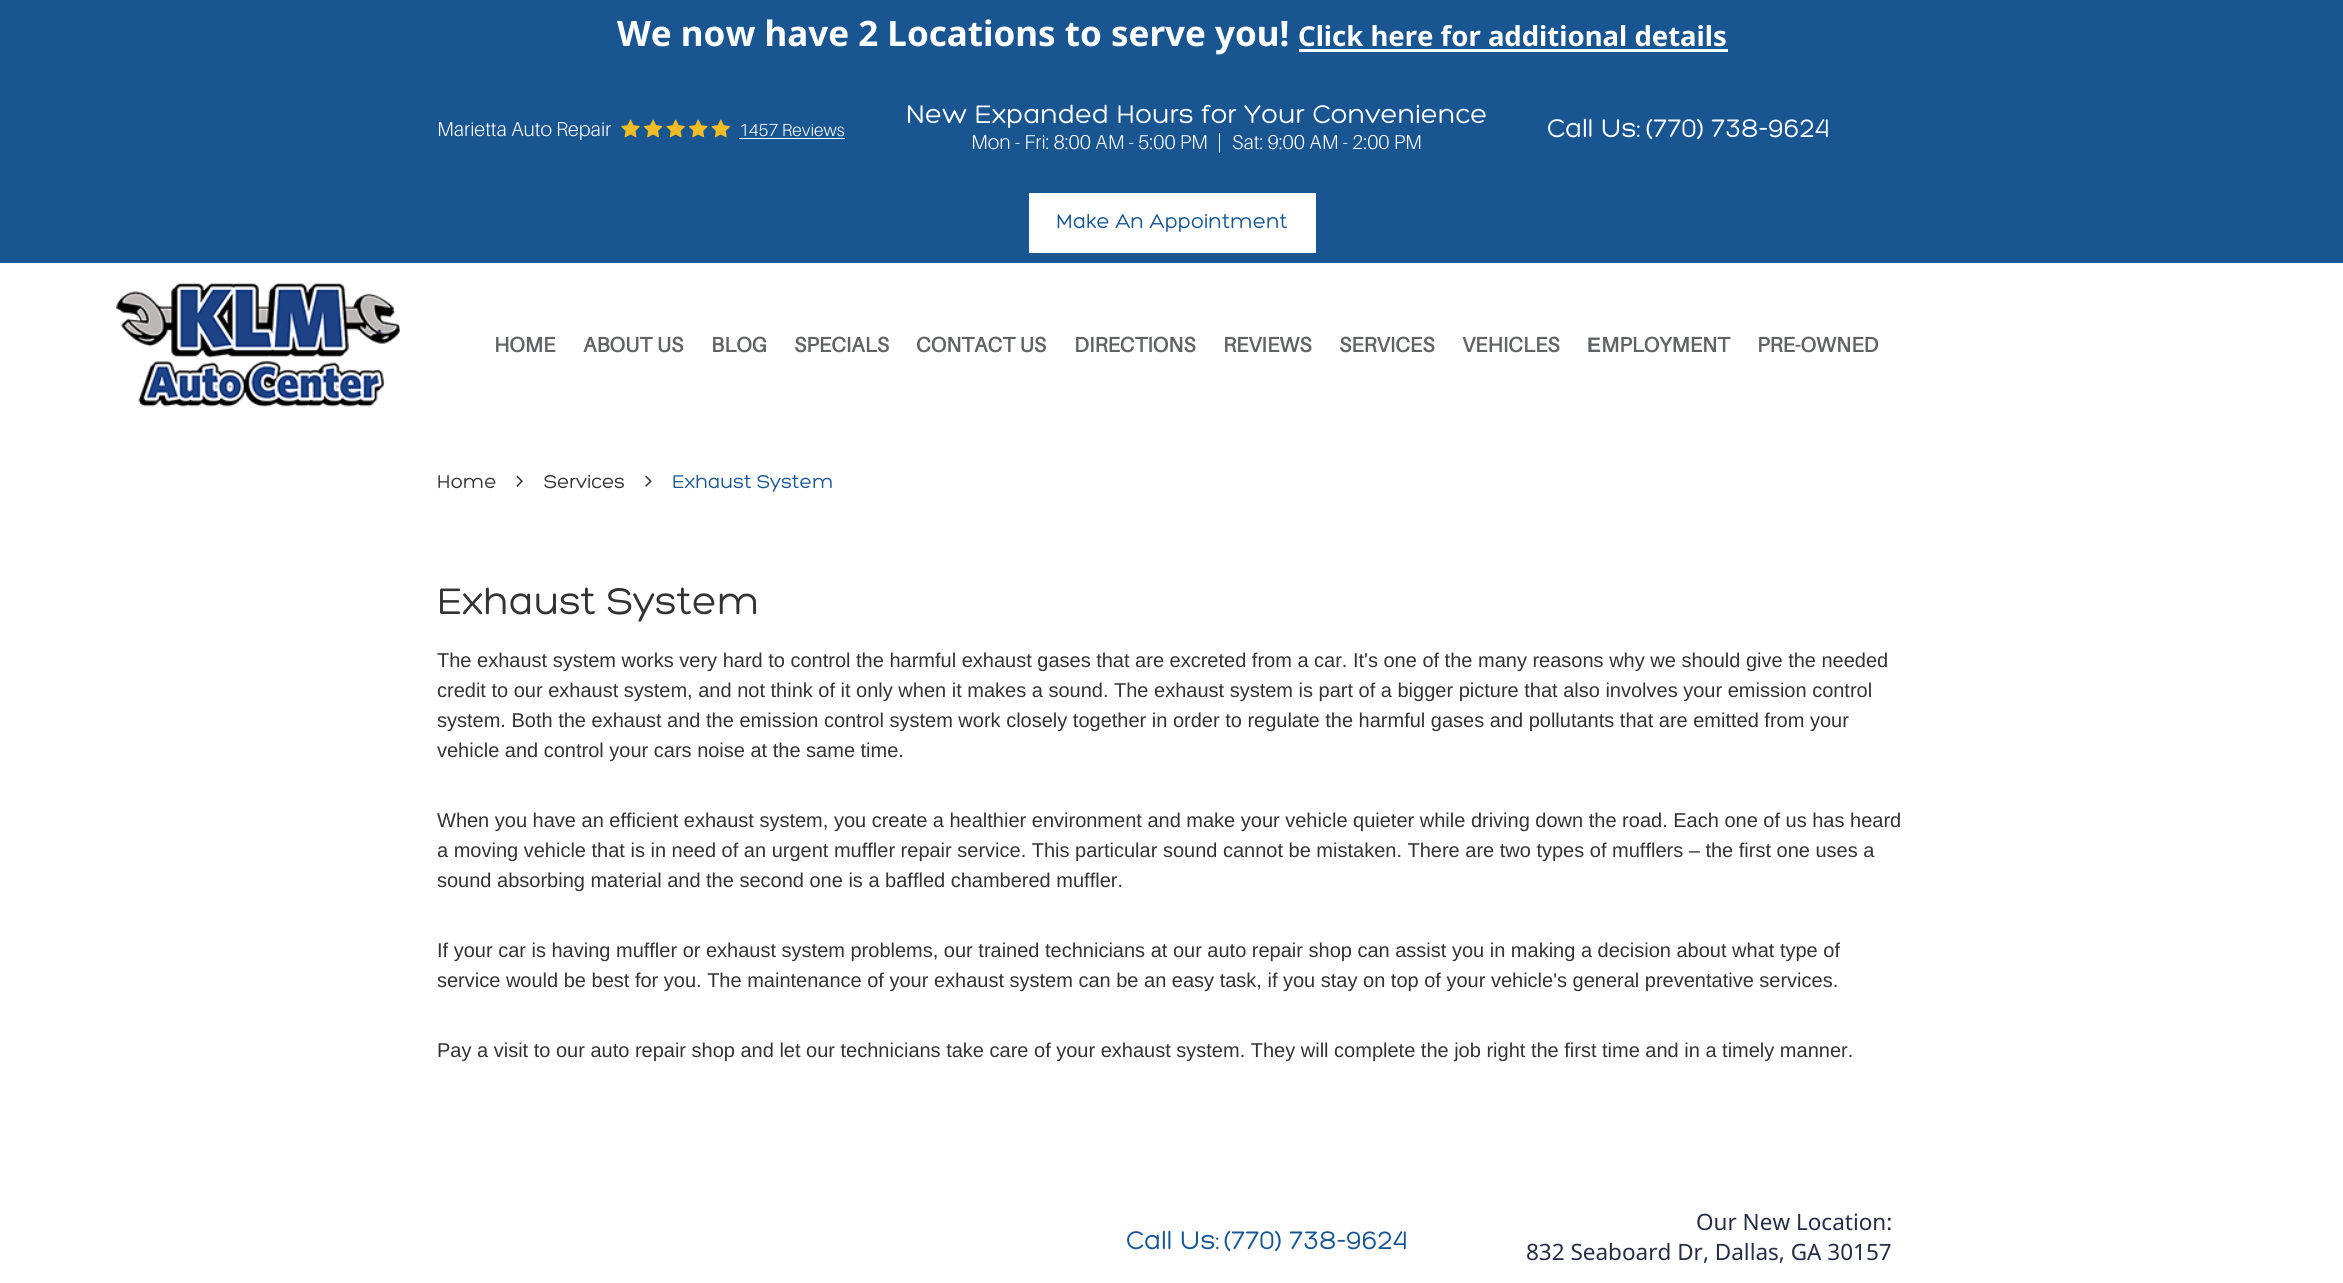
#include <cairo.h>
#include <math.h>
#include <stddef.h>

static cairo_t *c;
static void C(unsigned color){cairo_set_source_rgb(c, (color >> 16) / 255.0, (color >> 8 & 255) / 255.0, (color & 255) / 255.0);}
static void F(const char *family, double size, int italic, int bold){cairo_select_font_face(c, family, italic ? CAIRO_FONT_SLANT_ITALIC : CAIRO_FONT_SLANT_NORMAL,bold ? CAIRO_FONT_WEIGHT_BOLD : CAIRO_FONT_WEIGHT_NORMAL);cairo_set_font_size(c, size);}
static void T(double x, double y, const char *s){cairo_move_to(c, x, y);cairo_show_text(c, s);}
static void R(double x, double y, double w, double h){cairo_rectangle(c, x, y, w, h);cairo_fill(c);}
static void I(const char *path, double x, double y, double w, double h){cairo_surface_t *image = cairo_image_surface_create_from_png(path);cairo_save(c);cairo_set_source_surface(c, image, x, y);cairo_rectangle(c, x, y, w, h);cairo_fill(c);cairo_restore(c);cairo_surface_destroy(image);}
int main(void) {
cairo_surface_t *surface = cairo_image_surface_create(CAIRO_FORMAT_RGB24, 2343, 1283);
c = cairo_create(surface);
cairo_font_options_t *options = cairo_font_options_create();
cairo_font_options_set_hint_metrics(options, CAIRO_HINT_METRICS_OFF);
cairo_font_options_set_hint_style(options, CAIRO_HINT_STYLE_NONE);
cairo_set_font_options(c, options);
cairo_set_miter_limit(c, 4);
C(0xffffff);
cairo_paint(c);
C(0x195591);
R(0,0,2343,263);
F("Noto Sans",35,0,1);
C(0xffffff);
T(617,46,"We now have 2 Locations to serve you!");
F("Noto Sans",27.5,0,1);
T(1298,46,"Click here for additional details");
R(1299,49,429,3);
F("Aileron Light",20,0,0);
T(437,136,"Marietta Auto Repair");
I("1.png",621,119,109,19);
F("Aileron Light",17.5,0,0);
T(739,136,"1457 Reviews");
R(739,138,106,1);
F("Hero",27.5,0,0);
T(906,123,"New Expanded Hours for Your Convenience");
F("Aileron Light",20,0,0);
T(971,149,"Mon - Fri: 8:00 AM - 5:00 PM");
T(1217,149,"|");
T(1232,149,"Sat: 9:00 AM - 2:00 PM");
F("Hero",27.5,0,0);
T(1547,137,"Call Us:");
T(1646,137,"(770) 738-9624");
R(1029,193,287,60);
F("Hero",21.25,0,0);
C(0x195591);
T(1056,228,"Make An Appointment");
I("2.png",116,283,284,124);
F("Aileron",21,0,1);
C(0x606264);
T(494,352,"HOME");
T(583,352,"ABOUT US");
T(711,352,"BLOG");
T(794,352,"SPECIALS");
T(916,352,"CONTACT US");
T(1074,352,"DIRECTIONS");
T(1223,352,"REVIEWS");
T(1339,352,"SERVICES");
T(1462,352,"VEHICLES");
F("Liberation Sans",21,0,1);
T(1587,352,"Е");
F("Aileron",21,0,1);
T(1601,352,"MPLOYMENT");
T(1757,352,"PRE-OWNED");
F("Hero",20,0,0);
C(0x333333);
T(437,488,"Home");
I("3.png",516,475,7,12);
T(544,488,"Services");
I("4.png",645,475,7,12);
C(0x195591);
T(672,488,"Exhaust System");
F("Hero",40,0,0);
C(0x333333);
T(437,614,"Exhaust System");
F("Liberation Sans",20,0,0);
T(437,667,"The exhaust system works very hard to control the harmful exhaust gases that are excreted from a car. It's one of the many reasons why we should give the needed");
T(437,697,"credit to our exhaust system, and not think of it only when it makes a sound. The exhaust system is part of a bigger picture that also involves your emission control");
T(437,727,"system. Both the exhaust and the emission control system work closely together in order to regulate the harmful gases and pollutants that are emitted from your");
T(437,757,"vehicle and control your cars noise at the same time.");
T(437,827,"When you have an efficient exhaust system, you create a healthier environment and make your vehicle quieter while driving down the road. Each one of us has heard");
T(437,857,"a moving vehicle that is in need of an urgent muffler repair service. This particular sound cannot be mistaken. There are two types of mufflers – the first one uses a");
T(437,887,"sound absorbing material and the second one is a baffled chambered muffler.");
T(437,957,"If your car is having muffler or exhaust system problems, our trained technicians at our auto repair shop can assist you in making a decision about what type of");
T(437,987,"service would be best for you. The maintenance of your exhaust system can be an easy task, if you stay on top of your vehicle's general preventative services.");
T(437,1057,"Pay a visit to our auto repair shop and let our technicians take care of your exhaust system. They will complete the job right the first time and in a timely manner.");
F("Hero",27.5,0,0);
C(0x195591);
T(1126,1249,"Call Us:");
T(1224,1249,"(770) 738-9624");
F("Noto Sans",22.5,0,0);
C(0x272d44);
T(1696,1230,"Our New Location:");
T(1526,1260,"832 Seaboard Dr, Dallas, GA 30157");
cairo_surface_write_to_png(surface, "o.png");
cairo_font_options_destroy(options);
cairo_destroy(c);
cairo_surface_destroy(surface);
return 0;
}
